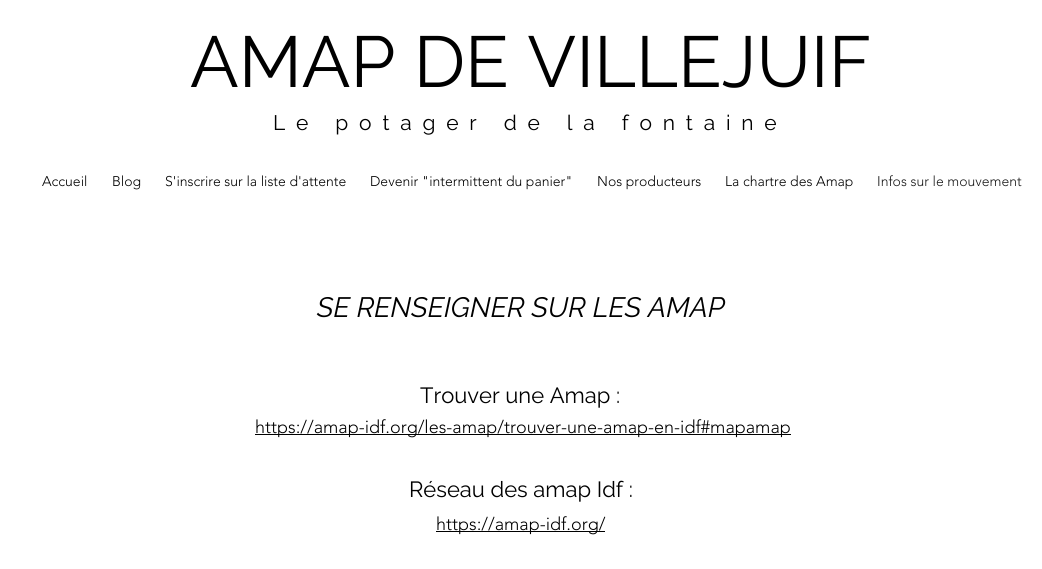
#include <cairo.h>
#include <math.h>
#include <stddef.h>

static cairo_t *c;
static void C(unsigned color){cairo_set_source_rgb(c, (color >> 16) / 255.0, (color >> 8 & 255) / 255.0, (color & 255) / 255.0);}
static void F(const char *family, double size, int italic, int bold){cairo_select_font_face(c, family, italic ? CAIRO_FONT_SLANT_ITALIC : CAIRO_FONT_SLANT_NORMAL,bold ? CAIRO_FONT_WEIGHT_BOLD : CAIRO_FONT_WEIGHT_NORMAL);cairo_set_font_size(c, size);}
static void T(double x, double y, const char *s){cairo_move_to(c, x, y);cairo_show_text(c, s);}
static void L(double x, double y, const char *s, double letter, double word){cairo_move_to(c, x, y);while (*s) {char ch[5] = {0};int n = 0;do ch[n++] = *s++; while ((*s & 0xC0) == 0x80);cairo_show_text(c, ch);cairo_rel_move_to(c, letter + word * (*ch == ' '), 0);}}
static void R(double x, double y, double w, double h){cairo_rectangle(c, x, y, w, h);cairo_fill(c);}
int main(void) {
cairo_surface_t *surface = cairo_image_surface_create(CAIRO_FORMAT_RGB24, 1042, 569);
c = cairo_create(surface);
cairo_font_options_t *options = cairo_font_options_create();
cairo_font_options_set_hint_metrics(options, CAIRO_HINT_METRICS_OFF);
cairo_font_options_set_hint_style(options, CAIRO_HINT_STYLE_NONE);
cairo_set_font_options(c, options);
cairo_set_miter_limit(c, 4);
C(0xffffff);
cairo_paint(c);
F("Raleway",72,0,0);
C(0x000000);
T(190,87,"AMAP DE VILLEJUIF");
F("Raleway",21,0,0);
L(273,130,"Le potager de la fontaine",10.8,0);
F("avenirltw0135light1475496 Light",14,0,0);
T(42,186,"Accueil");
T(112,186,"Blog");
T(165,186,"S'inscrire sur la liste d'attente");
T(370,186,"Devenir \"intermittent du panier\"");
T(597,186,"Nos producteurs");
T(725,186,"La chartre des Amap");
C(0x191919);
T(877,186,"Infos sur le mouvement");
F("Raleway",28,1,0);
C(0x000000);
T(317,317,"SE RENSEIGNER SUR LES AMAP");
F("Raleway",22,0,0);
T(420,403,"Trouver une Amap :");
R(255,434,536,1);
F("avenirltw0135light1475496 Light",18,0,0);
T(255,433,"https://amap-idf.org/les-amap/trouver-une-amap-en-idf#mapamap");
F("Raleway",22,0,0);
T(409,497,"Réseau des amap Idf :");
R(436,531,169,1);
F("avenirltw0135light1475496 Light",18,0,0);
T(436,530,"https://amap-idf.org/");
cairo_surface_write_to_png(surface, "o.png");
cairo_font_options_destroy(options);
cairo_destroy(c);
cairo_surface_destroy(surface);
return 0;
}
